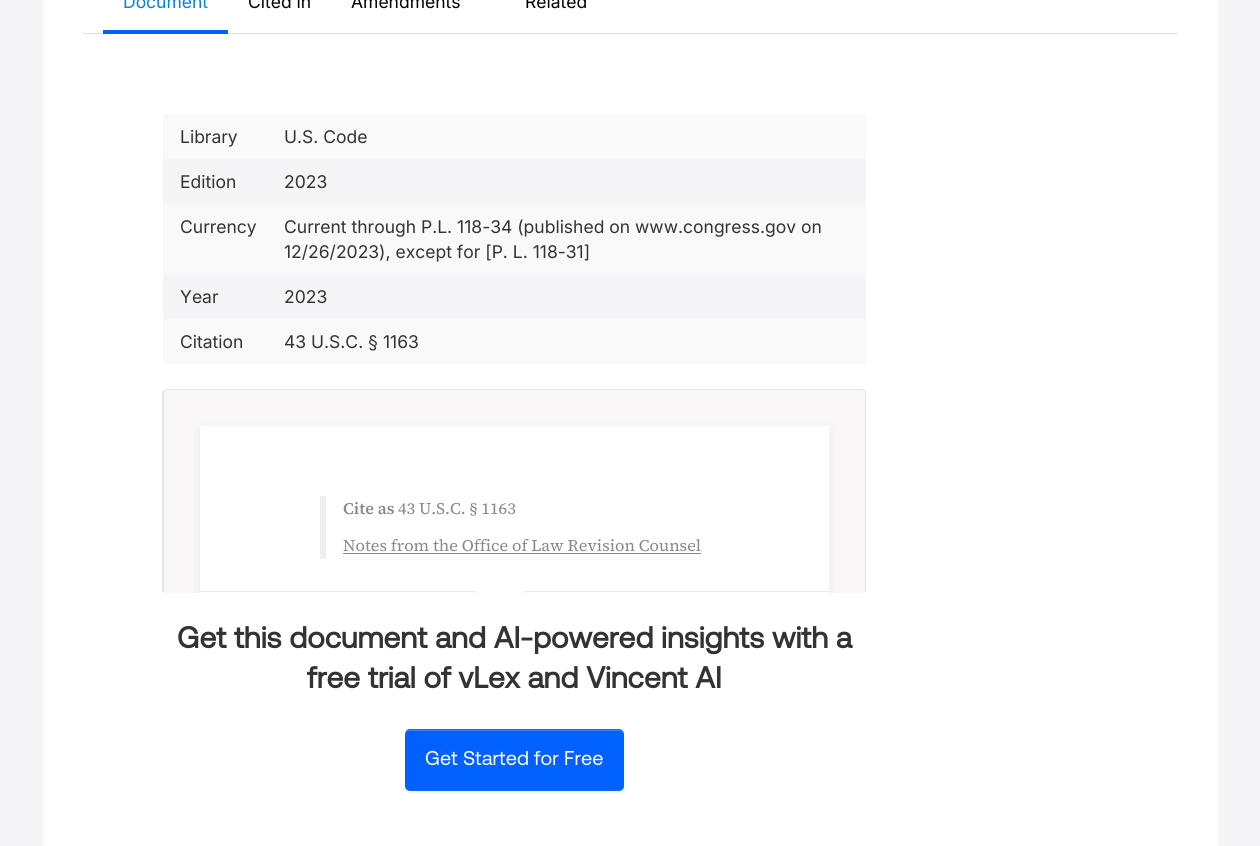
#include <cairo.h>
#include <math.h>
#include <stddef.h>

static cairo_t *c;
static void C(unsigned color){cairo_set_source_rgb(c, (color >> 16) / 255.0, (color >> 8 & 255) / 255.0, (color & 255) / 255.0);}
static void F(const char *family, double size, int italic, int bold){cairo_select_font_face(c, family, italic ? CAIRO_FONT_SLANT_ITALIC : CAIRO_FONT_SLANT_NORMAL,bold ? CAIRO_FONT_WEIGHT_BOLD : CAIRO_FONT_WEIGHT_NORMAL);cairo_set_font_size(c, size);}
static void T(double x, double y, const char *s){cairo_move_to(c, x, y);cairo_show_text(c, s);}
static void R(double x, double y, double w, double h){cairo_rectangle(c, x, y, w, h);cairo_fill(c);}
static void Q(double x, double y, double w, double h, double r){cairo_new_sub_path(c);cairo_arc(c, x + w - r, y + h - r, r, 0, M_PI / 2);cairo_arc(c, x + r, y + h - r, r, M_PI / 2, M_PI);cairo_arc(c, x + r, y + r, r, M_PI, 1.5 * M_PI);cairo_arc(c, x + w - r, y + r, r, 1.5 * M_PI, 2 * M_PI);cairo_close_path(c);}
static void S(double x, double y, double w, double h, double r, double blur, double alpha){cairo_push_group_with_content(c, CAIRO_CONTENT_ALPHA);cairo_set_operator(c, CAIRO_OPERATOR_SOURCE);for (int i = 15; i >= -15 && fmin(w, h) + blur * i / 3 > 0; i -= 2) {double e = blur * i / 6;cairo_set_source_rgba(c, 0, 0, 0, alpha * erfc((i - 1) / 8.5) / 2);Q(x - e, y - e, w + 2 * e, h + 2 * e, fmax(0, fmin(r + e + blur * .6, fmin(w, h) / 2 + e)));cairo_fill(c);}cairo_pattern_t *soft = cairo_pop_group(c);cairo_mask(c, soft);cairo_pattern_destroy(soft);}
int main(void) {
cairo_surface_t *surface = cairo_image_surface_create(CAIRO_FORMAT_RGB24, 1260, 846);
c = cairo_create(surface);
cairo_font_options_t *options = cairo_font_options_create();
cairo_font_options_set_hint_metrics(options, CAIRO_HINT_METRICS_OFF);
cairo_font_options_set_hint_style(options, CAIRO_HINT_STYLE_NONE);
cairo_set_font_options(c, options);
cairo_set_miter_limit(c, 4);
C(0xf5f5f7);
cairo_paint(c);
C(0xffffff);
R(43,0,1175,846);
C(0xdddddd);
R(83,33,1095,1);
F("Inter",17.5,0,0);
C(0x0882cf);
T(123,8,"Document");
C(0x0161ff);
R(103,30,125,4);
C(0x000000);
T(248,8,"Cited in");
T(351,8,"Amendments");
T(525,8,"Related");
C(0xf9f9f9);
R(163,114,703,45);
C(0x333333);
T(180,143,"Library");
T(284,143,"U.S. Code");
C(0xf5f5f7);
R(163,159,703,45);
C(0x333333);
T(180,188,"Edition");
T(284,188,"2023");
C(0xf9f9f9);
R(163,204,703,70);
C(0x333333);
T(180,233,"Currency");
T(284,233,"Current through P.L. 118-34 (published on www.congress.gov on");
T(284,258,"12/26/2023), except for [P. L. 118-31]");
C(0xf5f5f7);
R(163,274,703,45);
C(0x333333);
T(180,303,"Year");
T(284,303,"2023");
C(0xf9f9f9);
R(163,319,703,45);
C(0x333333);
T(180,348,"Citation");
T(284,348,"43 U.S.C. § 1163");
C(0xf9f7f7);
cairo_new_path(c);
cairo_move_to(c,168,389);
cairo_line_to(c,861,389);
cairo_curve_to(c,864,389,866,391,866,394);
cairo_line_to(c,866,593);
cairo_line_to(c,163,593);
cairo_line_to(c,163,394);
cairo_curve_to(c,163,391,165,389,168,389);
cairo_close_path(c);
cairo_fill(c);
C(0xe7e4e4);
cairo_set_fill_rule(c,CAIRO_FILL_RULE_EVEN_ODD);
cairo_new_path(c);
cairo_move_to(c,168,389);
cairo_line_to(c,861,389);
cairo_curve_to(c,864,389,866,391,866,394);
cairo_line_to(c,866,592);
cairo_line_to(c,162,592);
cairo_line_to(c,162,394);
cairo_curve_to(c,162,391,165,389,168,389);
cairo_close_path(c);
cairo_move_to(c,168,390);
cairo_line_to(c,861,390);
cairo_curve_to(c,863,390,865,392,865,394);
cairo_line_to(c,865,592);
cairo_line_to(c,164,592);
cairo_line_to(c,164,394);
cairo_curve_to(c,164,392,165,390,168,390);
cairo_close_path(c);
cairo_fill(c);
cairo_save(c);
cairo_set_fill_rule(c,CAIRO_FILL_RULE_WINDING);
cairo_new_path(c);
cairo_move_to(c,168,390);
cairo_line_to(c,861,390);
cairo_curve_to(c,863,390,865,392,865,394);
cairo_line_to(c,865,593);
cairo_line_to(c,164,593);
cairo_line_to(c,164,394);
cairo_curve_to(c,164,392,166,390,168,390);
cairo_close_path(c);
cairo_clip(c);
C(0x000000);
S(200,429,629,166,0,5,.06);
cairo_restore(c);
C(0xffffff);
R(200,426,629,167);
C(0xe7e7e7);
R(200,591,629,1);
C(0xeeeeee);
R(320,496,6,63);
F("Source Serif 4 SemiBold",16.25,0,0);
C(0x888888);
T(343,514,"Cite as");
F("Source Serif 4",16.25,0,0);
T(398,514,"43 U.S.C. § 1163");
T(343,551,"Notes from the Office of Law Revision Counsel");
R(343,553,358,1);
C(0xe7e7e7);
cairo_set_fill_rule(c,CAIRO_FILL_RULE_WINDING);
cairo_new_path(c);
cairo_move_to(c,474,591);
cairo_line_to(c,526,591);
cairo_line_to(c,524,593);
cairo_line_to(c,476,593);
cairo_close_path(c);
cairo_fill(c);
C(0xffffff);
cairo_new_path(c);
cairo_move_to(c,475,591);
cairo_line_to(c,525,591);
cairo_line_to(c,523,593);
cairo_line_to(c,477,593);
cairo_close_path(c);
cairo_fill(c);
F("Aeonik",30,0,1);
C(0x333333);
T(177,648,"Get this document and AI-powered insights with a");
T(307,688,"free trial of vLex and Vincent AI");
C(0x000000);
S(405,730,219,63,5,1,.05);
C(0x0161ff);
Q(405,729,219,62,5);
cairo_fill(c);
cairo_set_source_rgba(c,1,1,1,0.2);
cairo_new_path(c);
cairo_move_to(c,410,731);
cairo_line_to(c,619,731);
cairo_curve_to(c,621,731,623,732,624,734);
cairo_curve_to(c,624,732,622,730,619,730);
cairo_line_to(c,410,730);
cairo_curve_to(c,407,730,405,732,405,734);
cairo_line_to(c,405,735);
cairo_curve_to(c,405,733,407,731,410,731);
cairo_close_path(c);
cairo_fill(c);
cairo_set_source_rgba(c,0.659,0.796,1,0.1);
cairo_new_path(c);
cairo_move_to(c,410,729);
cairo_line_to(c,619,729);
cairo_curve_to(c,621,729,624,730,624,733);
cairo_curve_to(c,623,731,621,730,619,730);
cairo_line_to(c,410,730);
cairo_curve_to(c,407,730,405,732,405,734);
cairo_curve_to(c,405,731,407,729,410,729);
cairo_close_path(c);
cairo_fill(c);
cairo_set_source_rgba(c,0.643,0.741,0.859,0.1);
cairo_new_path(c);
cairo_move_to(c,624,788);
cairo_curve_to(c,623,790,621,791,619,791);
cairo_line_to(c,410,791);
cairo_curve_to(c,407,791,405,789,405,786);
cairo_curve_to(c,405,788,407,790,410,790);
cairo_line_to(c,619,790);
cairo_curve_to(c,621,790,623,789,624,787);
cairo_close_path(c);
cairo_fill(c);
F("Aeonik",20,0,0);
C(0xffffff);
T(425,765,"Get Started for Free");
cairo_surface_write_to_png(surface, "o.png");
cairo_font_options_destroy(options);
cairo_destroy(c);
cairo_surface_destroy(surface);
return 0;
}
